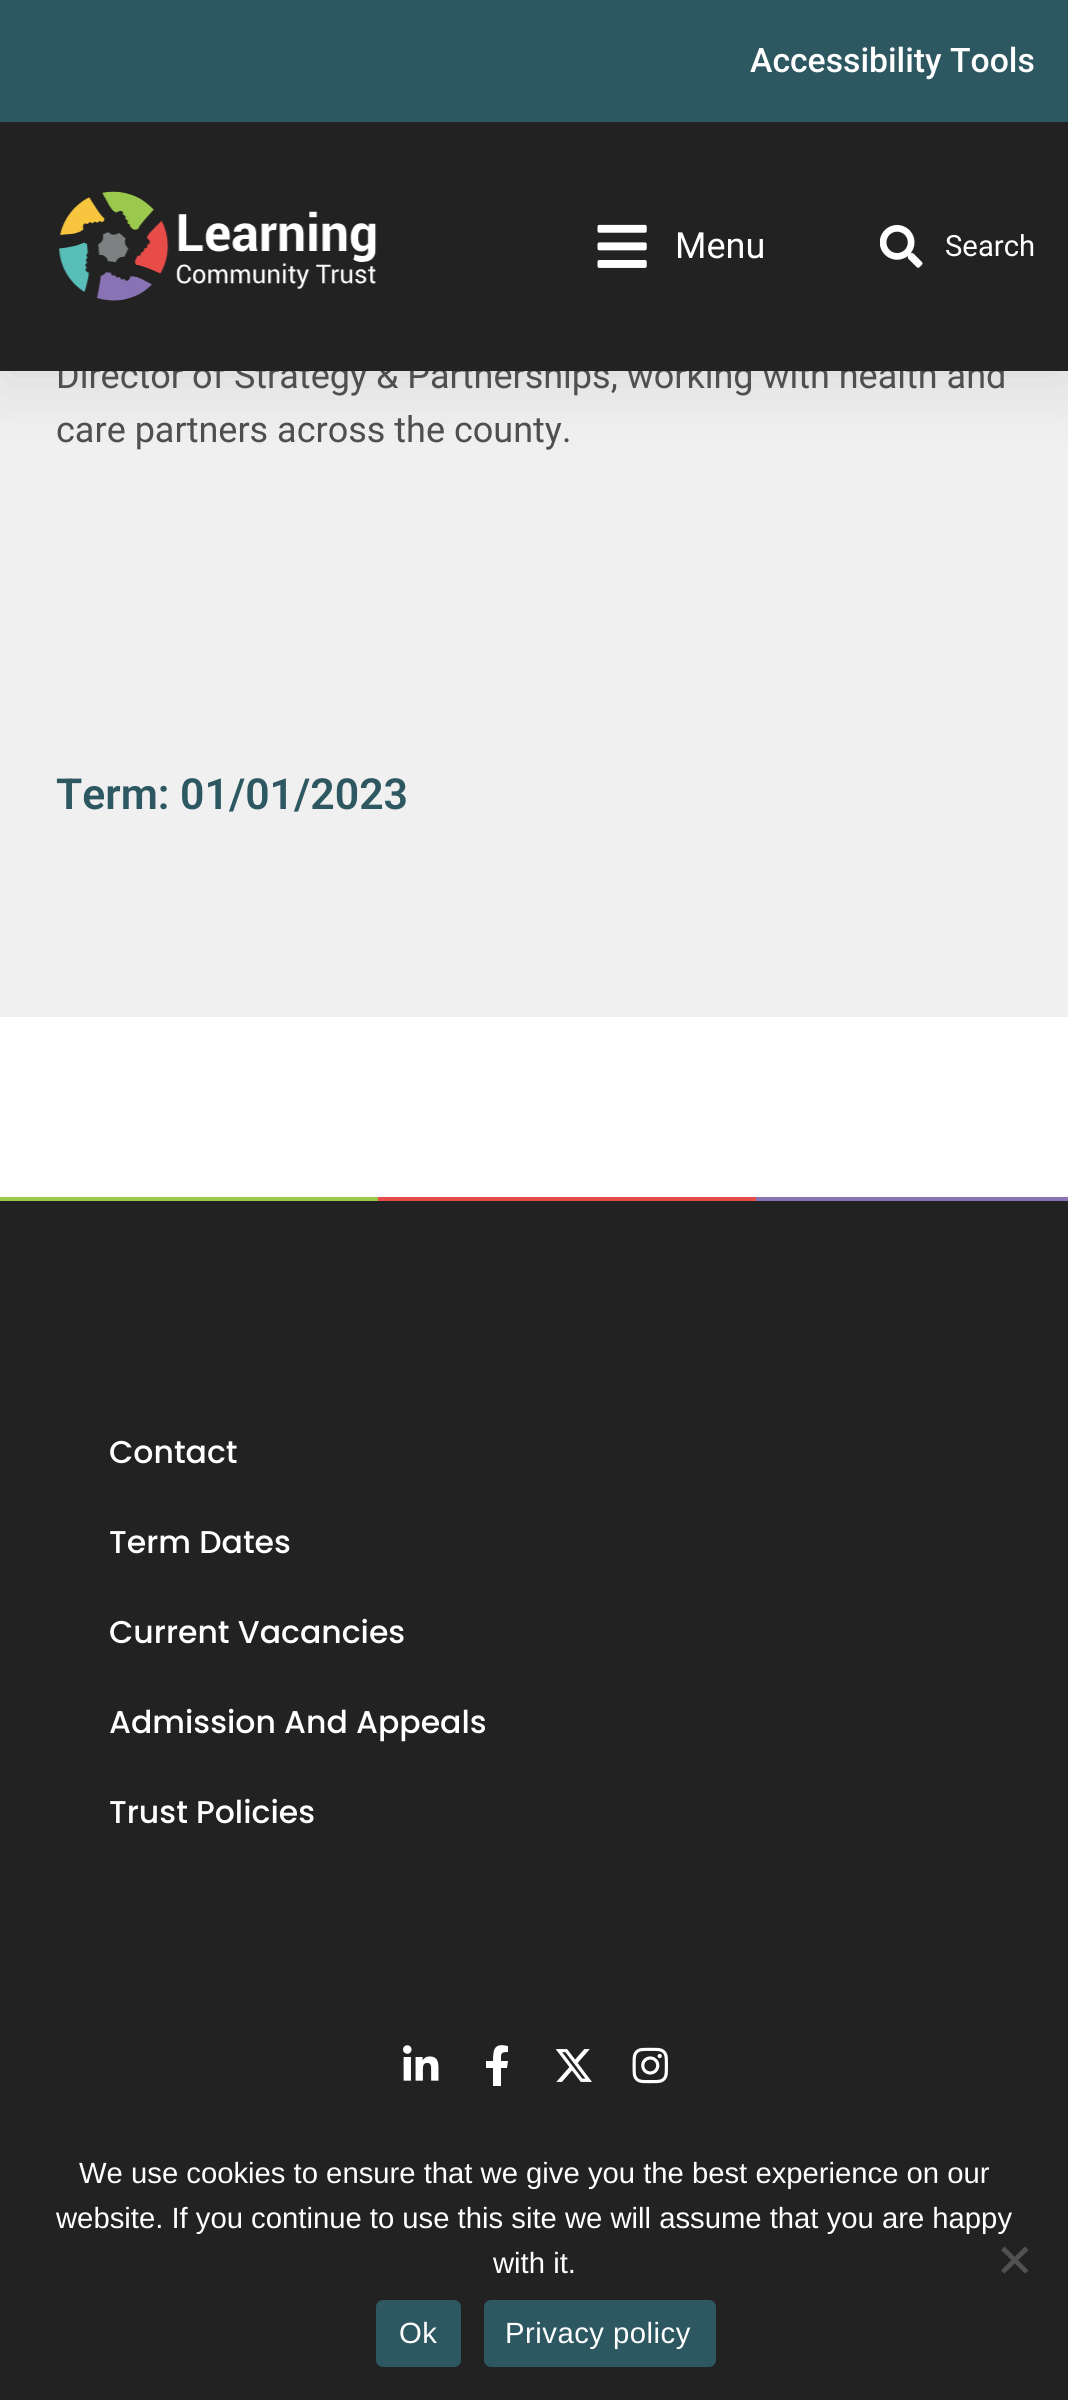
#include <cairo.h>
#include <math.h>
#include <stddef.h>

static cairo_t *c;
static void C(unsigned color){cairo_set_source_rgb(c, (color >> 16) / 255.0, (color >> 8 & 255) / 255.0, (color & 255) / 255.0);}
static void F(const char *family, double size, int italic, int bold){cairo_select_font_face(c, family, italic ? CAIRO_FONT_SLANT_ITALIC : CAIRO_FONT_SLANT_NORMAL,bold ? CAIRO_FONT_WEIGHT_BOLD : CAIRO_FONT_WEIGHT_NORMAL);cairo_set_font_size(c, size);}
static void T(double x, double y, const char *s){cairo_move_to(c, x, y);cairo_show_text(c, s);}
static void L(double x, double y, const char *s, double letter, double word){cairo_move_to(c, x, y);while (*s) {char ch[5] = {0};int n = 0;do ch[n++] = *s++; while ((*s & 0xC0) == 0x80);cairo_show_text(c, ch);cairo_rel_move_to(c, letter + word * (*ch == ' '), 0);}}
static void R(double x, double y, double w, double h){cairo_rectangle(c, x, y, w, h);cairo_fill(c);}
static void Q(double x, double y, double w, double h, double r){cairo_new_sub_path(c);cairo_arc(c, x + w - r, y + h - r, r, 0, M_PI / 2);cairo_arc(c, x + r, y + h - r, r, M_PI / 2, M_PI);cairo_arc(c, x + r, y + r, r, M_PI, 1.5 * M_PI);cairo_arc(c, x + w - r, y + r, r, 1.5 * M_PI, 2 * M_PI);cairo_close_path(c);}
static void S(double x, double y, double w, double h, double r, double blur, double alpha){cairo_push_group_with_content(c, CAIRO_CONTENT_ALPHA);cairo_set_operator(c, CAIRO_OPERATOR_SOURCE);for (int i = 15; i >= -15 && fmin(w, h) + blur * i / 3 > 0; i -= 2) {double e = blur * i / 6;cairo_set_source_rgba(c, 0, 0, 0, alpha * erfc((i - 1) / 8.5) / 2);Q(x - e, y - e, w + 2 * e, h + 2 * e, fmax(0, fmin(r + e + blur * .6, fmin(w, h) / 2 + e)));cairo_fill(c);}cairo_pattern_t *soft = cairo_pop_group(c);cairo_mask(c, soft);cairo_pattern_destroy(soft);}
static void I(const char *path, double x, double y, double w, double h){cairo_surface_t *image = cairo_image_surface_create_from_png(path);cairo_save(c);cairo_set_source_surface(c, image, x, y);cairo_rectangle(c, x, y, w, h);cairo_fill(c);cairo_restore(c);cairo_surface_destroy(image);}
int main(void) {
cairo_surface_t *surface = cairo_image_surface_create(CAIRO_FORMAT_RGB24, 1068, 2400);
c = cairo_create(surface);
cairo_font_options_t *options = cairo_font_options_create();
cairo_font_options_set_hint_metrics(options, CAIRO_HINT_METRICS_OFF);
cairo_font_options_set_hint_style(options, CAIRO_HINT_STYLE_NONE);
cairo_set_font_options(c, options);
cairo_set_miter_limit(c, 4);
C(0xffffff);
cairo_paint(c);
C(0xf0f0f0);
R(0,371,1068,646);
C(0x000000);
S(0,11,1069,372,0,34,.1);
C(0x2e5861);
R(0,0,1068,122);
F("Roboto Medium",33.75,0,0);
C(0xffffff);
T(750,72,"Accessibility Tools");
F("Roboto",36,0,0);
C(0x4f4f4f);
T(56,388,"Director of Strategy & Partnerships, working with health and");
C(0x222222);
R(0,122,1068,249);
I("1.png",58,191,319,110);
I("2.png",597,224,50,44);
C(0xffffff);
T(675,258,"Menu");
I("3.png",880,225,43,43);
F("Roboto",29.25,0,0);
T(945,256,"Search");
F("Roboto",36,0,0);
C(0x4f4f4f);
T(56,442,"care partners across the county.");
F("Roboto SemiBold",42.75,0,0);
C(0x2e5861);
T(56,809,"Term: 01/01/2023");
C(0x222222);
R(0,1197,1068,1203);
I("4.png",0,1197,1068,4);
F("Poppins Medium",31.5,0,0);
C(0xffffff);
T(109,1463,"Contact");
T(109,1553,"Term Dates");
T(109,1643,"Current Vacancies");
T(109,1733,"Admission And Appeals");
T(109,1823,"Trust Policies");
I("5.png",403,2045,36,36);
cairo_new_path(c);
cairo_move_to(c,507,2068);
cairo_line_to(c,508,2061);
cairo_line_to(c,501,2061);
cairo_curve_to(c,501,2054,500,2052,508,2052);
cairo_line_to(c,508,2046);
cairo_curve_to(c,495,2043,493,2048,493,2061);
cairo_line_to(c,486,2061);
cairo_line_to(c,486,2068);
cairo_line_to(c,493,2068);
cairo_line_to(c,493,2086);
cairo_line_to(c,501,2086);
cairo_line_to(c,501,2068);
cairo_close_path(c);
cairo_fill(c);
I("6.png",555,2049,37,33);
I("7.png",632,2047,36,37);
F("Liberation Sans",29.25,0,0);
T(79,2183,"We use cookies to ensure that we give you the best experience on our");
T(56,2228,"website. If you continue to use this site we will assume that you are happy");
T(493,2273,"with it.");
C(0x515151);
cairo_new_path(c);
cairo_move_to(c,1025,2246.5);
cairo_line_to(c,1028.5,2250);
cairo_line_to(c,1004.5,2273.5);
cairo_line_to(c,1001,2270.5);
cairo_close_path(c);
cairo_fill(c);
cairo_new_path(c);
cairo_move_to(c,1001,2250);
cairo_line_to(c,1004.5,2246.5);
cairo_line_to(c,1028.5,2270.5);
cairo_line_to(c,1025,2273.5);
cairo_close_path(c);
cairo_fill(c);
C(0x2e5861);
Q(376,2300,85,67,7);
cairo_fill(c);
C(0xffffff);
L(399,2343,"Ok",.5,0);
C(0x2e5861);
Q(484,2300,232,67,7);
cairo_fill(c);
C(0xffffff);
L(505,2343,"Privacy policy",.5,0);
cairo_surface_write_to_png(surface, "o.png");
cairo_font_options_destroy(options);
cairo_destroy(c);
cairo_surface_destroy(surface);
return 0;
}
